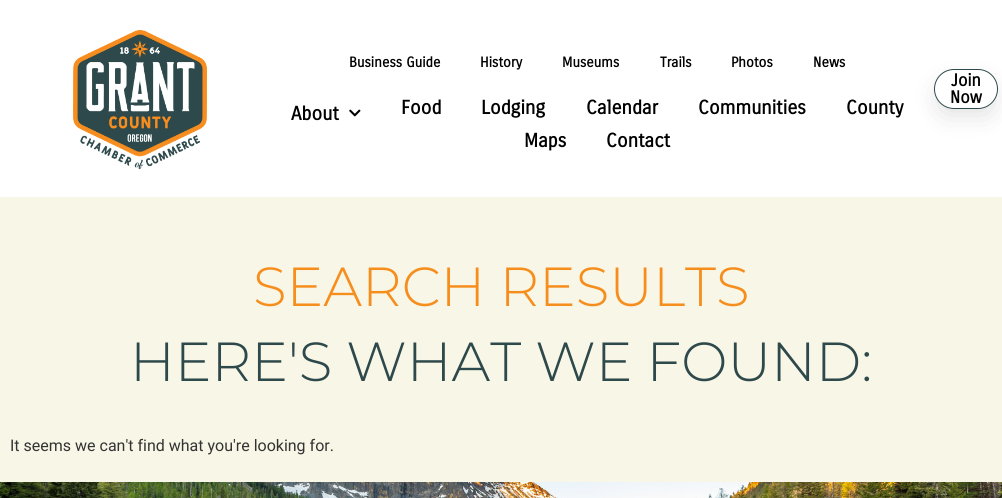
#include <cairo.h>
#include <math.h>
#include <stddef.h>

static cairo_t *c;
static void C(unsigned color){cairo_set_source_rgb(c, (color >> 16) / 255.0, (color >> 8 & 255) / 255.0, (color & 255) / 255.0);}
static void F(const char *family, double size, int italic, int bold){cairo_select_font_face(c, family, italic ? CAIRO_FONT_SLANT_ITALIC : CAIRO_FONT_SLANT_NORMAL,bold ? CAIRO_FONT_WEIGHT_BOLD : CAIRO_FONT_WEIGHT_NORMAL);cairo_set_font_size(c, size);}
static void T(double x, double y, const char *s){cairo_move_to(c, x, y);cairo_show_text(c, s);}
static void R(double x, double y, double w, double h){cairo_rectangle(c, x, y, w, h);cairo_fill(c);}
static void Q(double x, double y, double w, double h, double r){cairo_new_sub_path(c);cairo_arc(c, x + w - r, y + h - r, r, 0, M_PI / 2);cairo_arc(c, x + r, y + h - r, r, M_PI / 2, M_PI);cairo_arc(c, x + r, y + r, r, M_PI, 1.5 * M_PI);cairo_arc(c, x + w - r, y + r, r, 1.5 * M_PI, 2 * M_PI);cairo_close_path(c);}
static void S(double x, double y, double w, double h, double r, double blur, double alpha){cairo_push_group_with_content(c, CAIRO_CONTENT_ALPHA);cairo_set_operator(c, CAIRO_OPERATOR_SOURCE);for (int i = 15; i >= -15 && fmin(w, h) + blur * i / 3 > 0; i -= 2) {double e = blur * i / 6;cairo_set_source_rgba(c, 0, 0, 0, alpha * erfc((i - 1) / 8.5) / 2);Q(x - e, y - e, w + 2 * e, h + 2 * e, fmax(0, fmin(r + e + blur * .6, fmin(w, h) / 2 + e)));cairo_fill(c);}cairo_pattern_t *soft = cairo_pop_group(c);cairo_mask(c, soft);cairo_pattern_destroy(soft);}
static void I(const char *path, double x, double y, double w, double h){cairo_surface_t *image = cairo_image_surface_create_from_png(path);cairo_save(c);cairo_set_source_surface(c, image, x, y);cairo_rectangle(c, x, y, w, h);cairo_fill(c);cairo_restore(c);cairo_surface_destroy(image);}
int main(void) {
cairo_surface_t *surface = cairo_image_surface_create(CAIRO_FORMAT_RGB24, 1002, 498);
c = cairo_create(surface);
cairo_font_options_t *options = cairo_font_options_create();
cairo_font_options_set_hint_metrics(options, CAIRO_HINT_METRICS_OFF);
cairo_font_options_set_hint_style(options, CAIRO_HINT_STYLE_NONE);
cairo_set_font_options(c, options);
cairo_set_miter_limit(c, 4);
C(0xffffff);
cairo_paint(c);
I("1.png",73,30,134,139);
F("Carrois Gothic",14,0,1);
C(0x000000);
T(349,67,"Business Guide");
T(480,67,"History");
T(562,67,"Museums");
T(660,67,"Trails");
T(731,67,"Photos");
T(813,67,"News");
F("Carrois Gothic",19,0,1);
T(291,120,"About");
I("2.png",349,109,12,8);
T(401,114,"Food");
T(481,114,"Lodging");
T(586,114,"Calendar");
T(698,114,"Communities");
cairo_save(c);
cairo_set_fill_rule(c,CAIRO_FILL_RULE_EVEN_ODD);
cairo_new_path(c);
cairo_move_to(c,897,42);
cairo_line_to(c,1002,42);
cairo_line_to(c,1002,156);
cairo_line_to(c,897,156);
cairo_close_path(c);
cairo_move_to(c,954,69);
cairo_line_to(c,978,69);
cairo_curve_to(c,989,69,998,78,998,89);
cairo_curve_to(c,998,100,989,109,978,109);
cairo_line_to(c,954,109);
cairo_curve_to(c,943,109,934,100,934,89);
cairo_curve_to(c,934,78,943,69,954,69);
cairo_close_path(c);
cairo_clip(c);
C(0x000000);
S(943,88,46,22,11,15,.16);
cairo_restore(c);
T(846,114,"County");
T(524,147,"Maps");
T(606,147,"Contact");
Q(934.5,69.5,63,39,19.5);
C(0x2e494b);
cairo_set_line_width(c,1);
cairo_stroke(c);
F("Carrois Gothic",17,0,1);
C(0x000000);
T(951,86,"Join");
T(950,103,"Now");
C(0xf8f6e6);
R(0,197,1002,285);
F("Montserrat Light",55,0,0);
C(0xf68e1e);
T(253,306,"SEARCH RESULTS");
C(0x2e494b);
T(130,381,"HERE'S WHAT WE FOUND:");
F("Roboto",16,0,0);
C(0x333333);
T(10,451,"It seems we can't find what you're looking for.");
I("3.png",0,482,1002,16);
cairo_surface_write_to_png(surface, "o.png");
cairo_font_options_destroy(options);
cairo_destroy(c);
cairo_surface_destroy(surface);
return 0;
}
